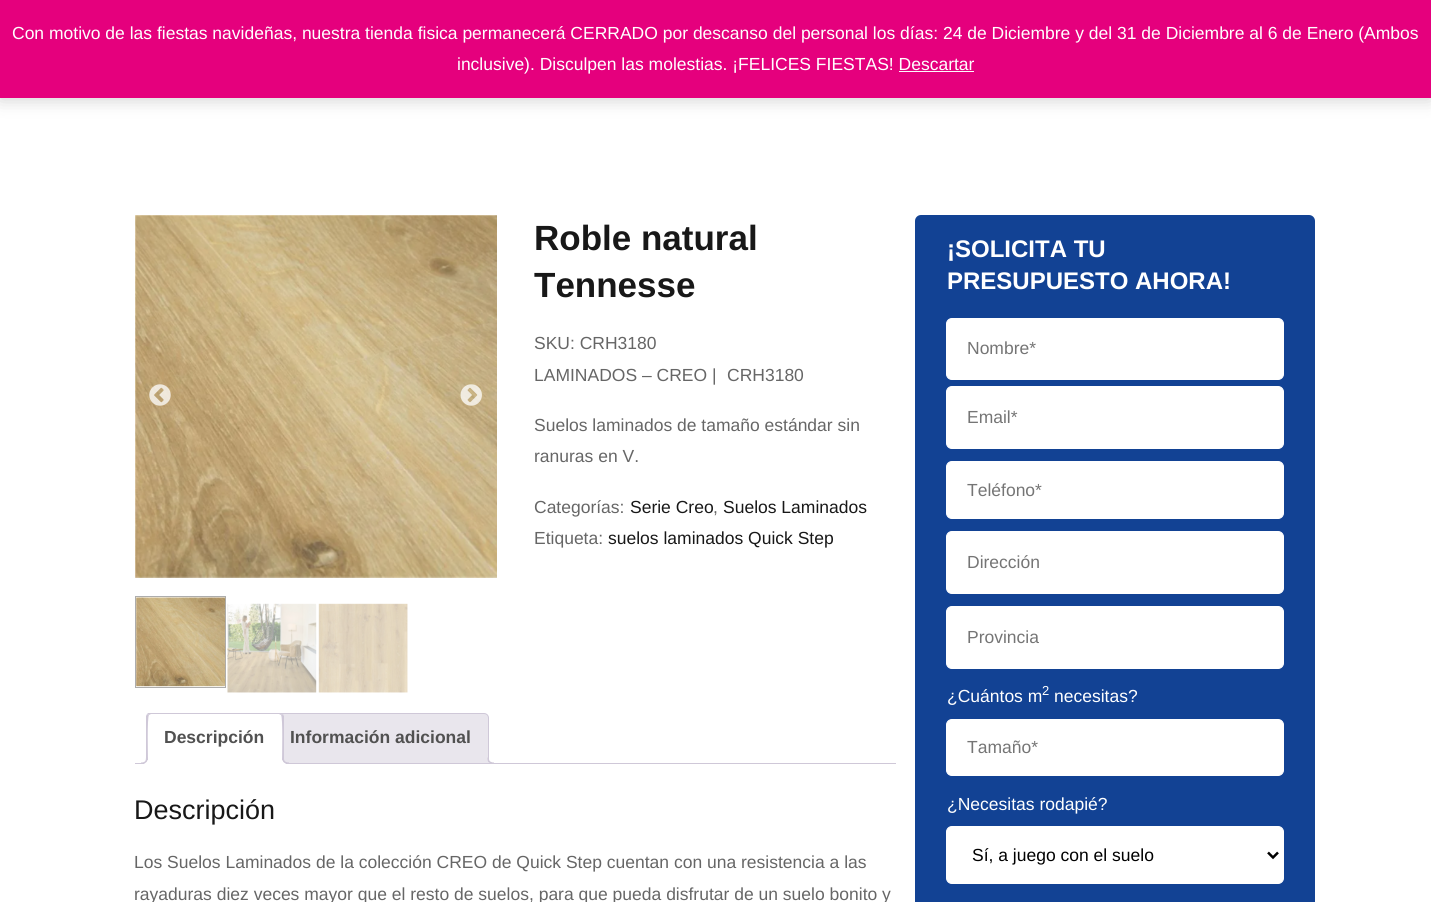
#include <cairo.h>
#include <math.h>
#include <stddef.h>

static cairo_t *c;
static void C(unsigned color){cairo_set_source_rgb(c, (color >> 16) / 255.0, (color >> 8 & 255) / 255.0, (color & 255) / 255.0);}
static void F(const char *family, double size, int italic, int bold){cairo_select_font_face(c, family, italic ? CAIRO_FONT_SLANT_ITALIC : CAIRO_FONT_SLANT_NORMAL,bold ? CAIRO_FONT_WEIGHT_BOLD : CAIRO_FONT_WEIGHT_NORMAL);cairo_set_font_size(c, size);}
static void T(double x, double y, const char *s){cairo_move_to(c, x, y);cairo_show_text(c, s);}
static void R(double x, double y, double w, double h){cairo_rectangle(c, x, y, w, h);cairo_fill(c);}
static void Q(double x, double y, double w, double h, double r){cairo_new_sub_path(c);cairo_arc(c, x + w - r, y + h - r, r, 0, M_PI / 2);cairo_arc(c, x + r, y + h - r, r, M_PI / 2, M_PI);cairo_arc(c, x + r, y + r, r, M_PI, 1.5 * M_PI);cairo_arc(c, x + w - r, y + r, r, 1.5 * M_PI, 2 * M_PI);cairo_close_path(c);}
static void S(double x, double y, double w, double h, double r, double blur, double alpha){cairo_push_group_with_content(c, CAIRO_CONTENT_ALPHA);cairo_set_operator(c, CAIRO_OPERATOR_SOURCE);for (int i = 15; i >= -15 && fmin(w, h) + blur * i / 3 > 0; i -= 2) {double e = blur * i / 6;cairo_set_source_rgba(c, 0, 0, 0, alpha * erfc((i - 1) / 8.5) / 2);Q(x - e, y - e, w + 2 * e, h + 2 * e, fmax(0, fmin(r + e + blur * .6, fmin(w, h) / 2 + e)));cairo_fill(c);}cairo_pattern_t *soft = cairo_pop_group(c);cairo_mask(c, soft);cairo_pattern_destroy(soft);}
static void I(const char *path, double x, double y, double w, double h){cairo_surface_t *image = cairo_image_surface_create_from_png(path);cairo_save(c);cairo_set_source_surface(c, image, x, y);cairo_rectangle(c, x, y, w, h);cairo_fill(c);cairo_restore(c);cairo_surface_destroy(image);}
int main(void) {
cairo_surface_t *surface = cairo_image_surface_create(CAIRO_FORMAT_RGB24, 1431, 902);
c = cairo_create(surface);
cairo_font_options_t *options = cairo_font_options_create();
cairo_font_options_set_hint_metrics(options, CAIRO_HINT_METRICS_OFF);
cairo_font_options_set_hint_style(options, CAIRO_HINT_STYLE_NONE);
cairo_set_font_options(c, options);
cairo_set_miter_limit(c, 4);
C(0xffffff);
cairo_paint(c);
C(0x000000);
S(0,1,1431,98,0,9,.2);
C(0xe5007d);
R(0,0,1431,98);
F("Liberation Sans",17.5,0,0);
C(0xffffff);
T(12,39,"Con motivo de las fiestas navideñas, nuestra tienda fisica permanecerá CERRADO por descanso del personal los días: 24 de Diciembre y del 31 de Diciembre al 6 de Enero (Ambos");
T(457,70,"inclusive). Disculpen las molestias. ¡FELICES FIESTAS! Descartar");
C(0xfcfbfe);
R(899,71,75,1);
I("1.png",135,215,362,363);
I("2.png",149,384,22,22);
I("3.png",460,384,22,22);
cairo_rectangle(c,135.5,596.5,90,91);
C(0xadadad);
cairo_set_line_width(c,1);
cairo_stroke(c);
I("4.png",136,597,90,90);
I("5.png",227,603,90,90);
I("6.png",318,603,90,90);
F("Liberation Sans",35,0,1);
C(0x181818);
T(534,250,"Roble natural");
T(534,297,"Tennesse");
F("Liberation Sans",17.5,0,0);
C(0x666666);
T(534,349,"SKU: CRH3180");
T(534,381,"LAMINADOS – CREO |");
T(727,381,"CRH3180");
T(534,431,"Suelos laminados de tamaño estándar sin");
T(534,462,"ranuras en V.");
T(534,513,"Categorías:");
C(0x181818);
T(630,513,"Serie Creo");
C(0x666666);
T(713,513,",");
C(0x181818);
T(723,513,"Suelos Laminados");
C(0x666666);
T(534,544,"Etiqueta:");
C(0x181818);
T(608,544,"suelos laminados Quick Step");
C(0xe9e6ed);
cairo_new_path(c);
cairo_move_to(c,276,713.5);
cairo_line_to(c,484,713.5);
cairo_curve_to(c,486.5,713.5,488.5,715.5,488.5,718);
cairo_line_to(c,488.5,763.5);
cairo_line_to(c,271.5,763.5);
cairo_line_to(c,271.5,718);
cairo_curve_to(c,271.5,715.5,273.5,713.5,276,713.5);
cairo_close_path(c);
cairo_fill_preserve(c);
C(0xcfc8d8);
cairo_stroke(c);
cairo_save(c);
cairo_rectangle(c,135,713,761,51);
cairo_clip(c);
C(0xe9e6ed);
cairo_new_path(c);
cairo_move_to(c,485,760);
cairo_curve_to(c,485,764,487,766,491,766);
cairo_line_to(c,491,763.5);
cairo_curve_to(c,489.5,763,488,761.5,487.5,760);
cairo_close_path(c);
cairo_fill(c);
cairo_restore(c);
cairo_set_fill_rule(c,CAIRO_FILL_RULE_EVEN_ODD);
cairo_new_path(c);
cairo_move_to(c,487.5,757.5);
cairo_line_to(c,494,757.5);
cairo_line_to(c,494,764);
cairo_curve_to(c,490.5,764,487.5,762.5,487.5,759);
cairo_close_path(c);
cairo_move_to(c,489,757.5);
cairo_line_to(c,494,757.5);
cairo_line_to(c,494,762.5);
cairo_curve_to(c,491.5,762.5,489,761.5,489,759);
cairo_close_path(c);
cairo_fill(c);
R(135,763,761,1);
C(0xffffff);
cairo_new_path(c);
cairo_move_to(c,151,713);
cairo_line_to(c,279,713);
cairo_curve_to(c,282,713,284,715,284,718);
cairo_line_to(c,284,764);
cairo_line_to(c,146,764);
cairo_line_to(c,146,718);
cairo_curve_to(c,146,715,148,713,151,713);
cairo_close_path(c);
cairo_fill(c);
cairo_save(c);
cairo_set_fill_rule(c,CAIRO_FILL_RULE_WINDING);
cairo_rectangle(c,135,713,761,51);
cairo_clip(c);
C(0xcfc8d8);
cairo_new_path(c);
cairo_move_to(c,151,714);
cairo_line_to(c,149,715);
cairo_line_to(c,147,714);
cairo_curve_to(c,153,708,163,712,171,712);
cairo_line_to(c,281,712);
cairo_line_to(c,283,714);
cairo_line_to(c,281,715);
cairo_line_to(c,279,714);
cairo_close_path(c);
cairo_fill(c);
cairo_restore(c);
C(0xcfc8d8);
cairo_set_fill_rule(c,CAIRO_FILL_RULE_WINDING);
cairo_new_path(c);
cairo_move_to(c,283,714);
cairo_line_to(c,284,716);
cairo_line_to(c,284,764);
cairo_line_to(c,282,762);
cairo_curve_to(c,282,756,283,717,281,715);
cairo_close_path(c);
cairo_fill(c);
C(0xffffff);
cairo_new_path(c);
cairo_move_to(c,284,764);
cairo_line_to(c,282,762);
cairo_line_to(c,148,762);
cairo_line_to(c,146,764);
cairo_close_path(c);
cairo_fill(c);
C(0xcfc8d8);
cairo_new_path(c);
cairo_move_to(c,146,764);
cairo_line_to(c,146,716);
cairo_line_to(c,147,714);
cairo_line_to(c,149,715);
cairo_curve_to(c,147,717,148,756,148,762);
cairo_close_path(c);
cairo_fill(c);
F("Liberation Sans",17.5,0,1);
C(0x515151);
T(164,743,"Descripción");
cairo_save(c);
cairo_rectangle(c,135,713,761,51);
cairo_clip(c);
C(0xffffff);
cairo_new_path(c);
cairo_move_to(c,144,763.5);
cairo_line_to(c,144,766);
cairo_curve_to(c,148,766,150,764,150,760);
cairo_line_to(c,147.5,760);
cairo_curve_to(c,147,761.5,145.5,763,144,763.5);
cairo_close_path(c);
cairo_fill(c);
cairo_restore(c);
C(0xcfc8d8);
cairo_set_fill_rule(c,CAIRO_FILL_RULE_EVEN_ODD);
cairo_new_path(c);
cairo_move_to(c,141,757.5);
cairo_line_to(c,147.5,757.5);
cairo_curve_to(c,147.5,762,145.5,764,141,764);
cairo_close_path(c);
cairo_move_to(c,141,757.5);
cairo_line_to(c,146,757.5);
cairo_curve_to(c,146,761,145,762.5,141,762.5);
cairo_close_path(c);
cairo_fill(c);
cairo_save(c);
cairo_set_fill_rule(c,CAIRO_FILL_RULE_WINDING);
cairo_rectangle(c,135,713,761,51);
cairo_clip(c);
C(0xffffff);
cairo_new_path(c);
cairo_move_to(c,280,760);
cairo_curve_to(c,280,764,282,766,286,766);
cairo_line_to(c,286,763.5);
cairo_curve_to(c,284.5,763,283,761.5,282.5,760);
cairo_close_path(c);
cairo_fill(c);
cairo_restore(c);
cairo_new_path(c);
cairo_move_to(c,282.5,757.5);
cairo_line_to(c,289,757.5);
cairo_line_to(c,289,764);
cairo_curve_to(c,285.5,764,282.5,762.5,282.5,759);
cairo_close_path(c);
cairo_move_to(c,284,757.5);
cairo_line_to(c,289,757.5);
cairo_line_to(c,289,762.5);
cairo_curve_to(c,286.5,762.5,284,761.5,284,759);
cairo_close_path(c);
cairo_fill(c);
C(0x515151);
T(290,743,"Información adicional");
F("Liberation Sans",27,0,0);
C(0x181818);
T(134,819,"Descripción");
F("Liberation Sans",17.5,0,0);
C(0x666666);
T(134,868,"Los Suelos Laminados de la colección CREO de Quick Step cuentan con una resistencia a las");
T(134,900,"rayaduras diez veces mayor que el resto de suelos, para que pueda disfrutar de un suelo bonito y");
C(0x124294);
Q(915,215,400,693,6);
cairo_fill(c);
F("Liberation Sans",24,0,1);
C(0xffffff);
T(947,257,"¡SOLICITA TU");
T(947,289,"PRESUPUESTO AHORA!");
Q(946.5,318.5,337,61,5.5);
cairo_fill_preserve(c);
cairo_stroke(c);
F("Liberation Sans",17.5,0,0);
C(0x757575);
T(967,354,"Nombre*");
C(0xffffff);
Q(946.5,386.5,337,62,5.5);
cairo_fill_preserve(c);
cairo_stroke(c);
C(0x757575);
T(967,423,"Email*");
C(0xffffff);
Q(946.5,461.5,337,57,5.5);
cairo_fill_preserve(c);
cairo_stroke(c);
C(0x757575);
T(967,496,"Teléfono*");
C(0xffffff);
Q(946.5,531.5,337,62,5.5);
cairo_fill_preserve(c);
cairo_stroke(c);
C(0x757575);
T(967,568,"Dirección");
C(0xffffff);
Q(946.5,606.5,337,62,5.5);
cairo_fill_preserve(c);
cairo_stroke(c);
C(0x757575);
T(967,643,"Provincia");
C(0xffffff);
T(947,702,"¿Cuántos m");
F("Liberation Sans",13,0,0);
T(1042,695,"2");
F("Liberation Sans",17.5,0,0);
T(1054,702,"necesitas?");
Q(946.5,719.5,337,56,5.5);
cairo_fill_preserve(c);
cairo_stroke(c);
C(0x757575);
T(967,753,"Tamaño*");
C(0xffffff);
T(947,810,"¿Necesitas rodapié?");
Q(946.5,826.5,337,57,5.5);
cairo_fill_preserve(c);
cairo_stroke(c);
cairo_new_path(c);
cairo_move_to(c,1268,852.5);
cairo_line_to(c,1273,857.5);
cairo_line_to(c,1278,852.5);
C(0x000000);
cairo_set_line_width(c,2.5);
cairo_stroke(c);
T(972,861,"Sí, a juego con el suelo");
cairo_surface_write_to_png(surface, "o.png");
cairo_font_options_destroy(options);
cairo_destroy(c);
cairo_surface_destroy(surface);
return 0;
}
